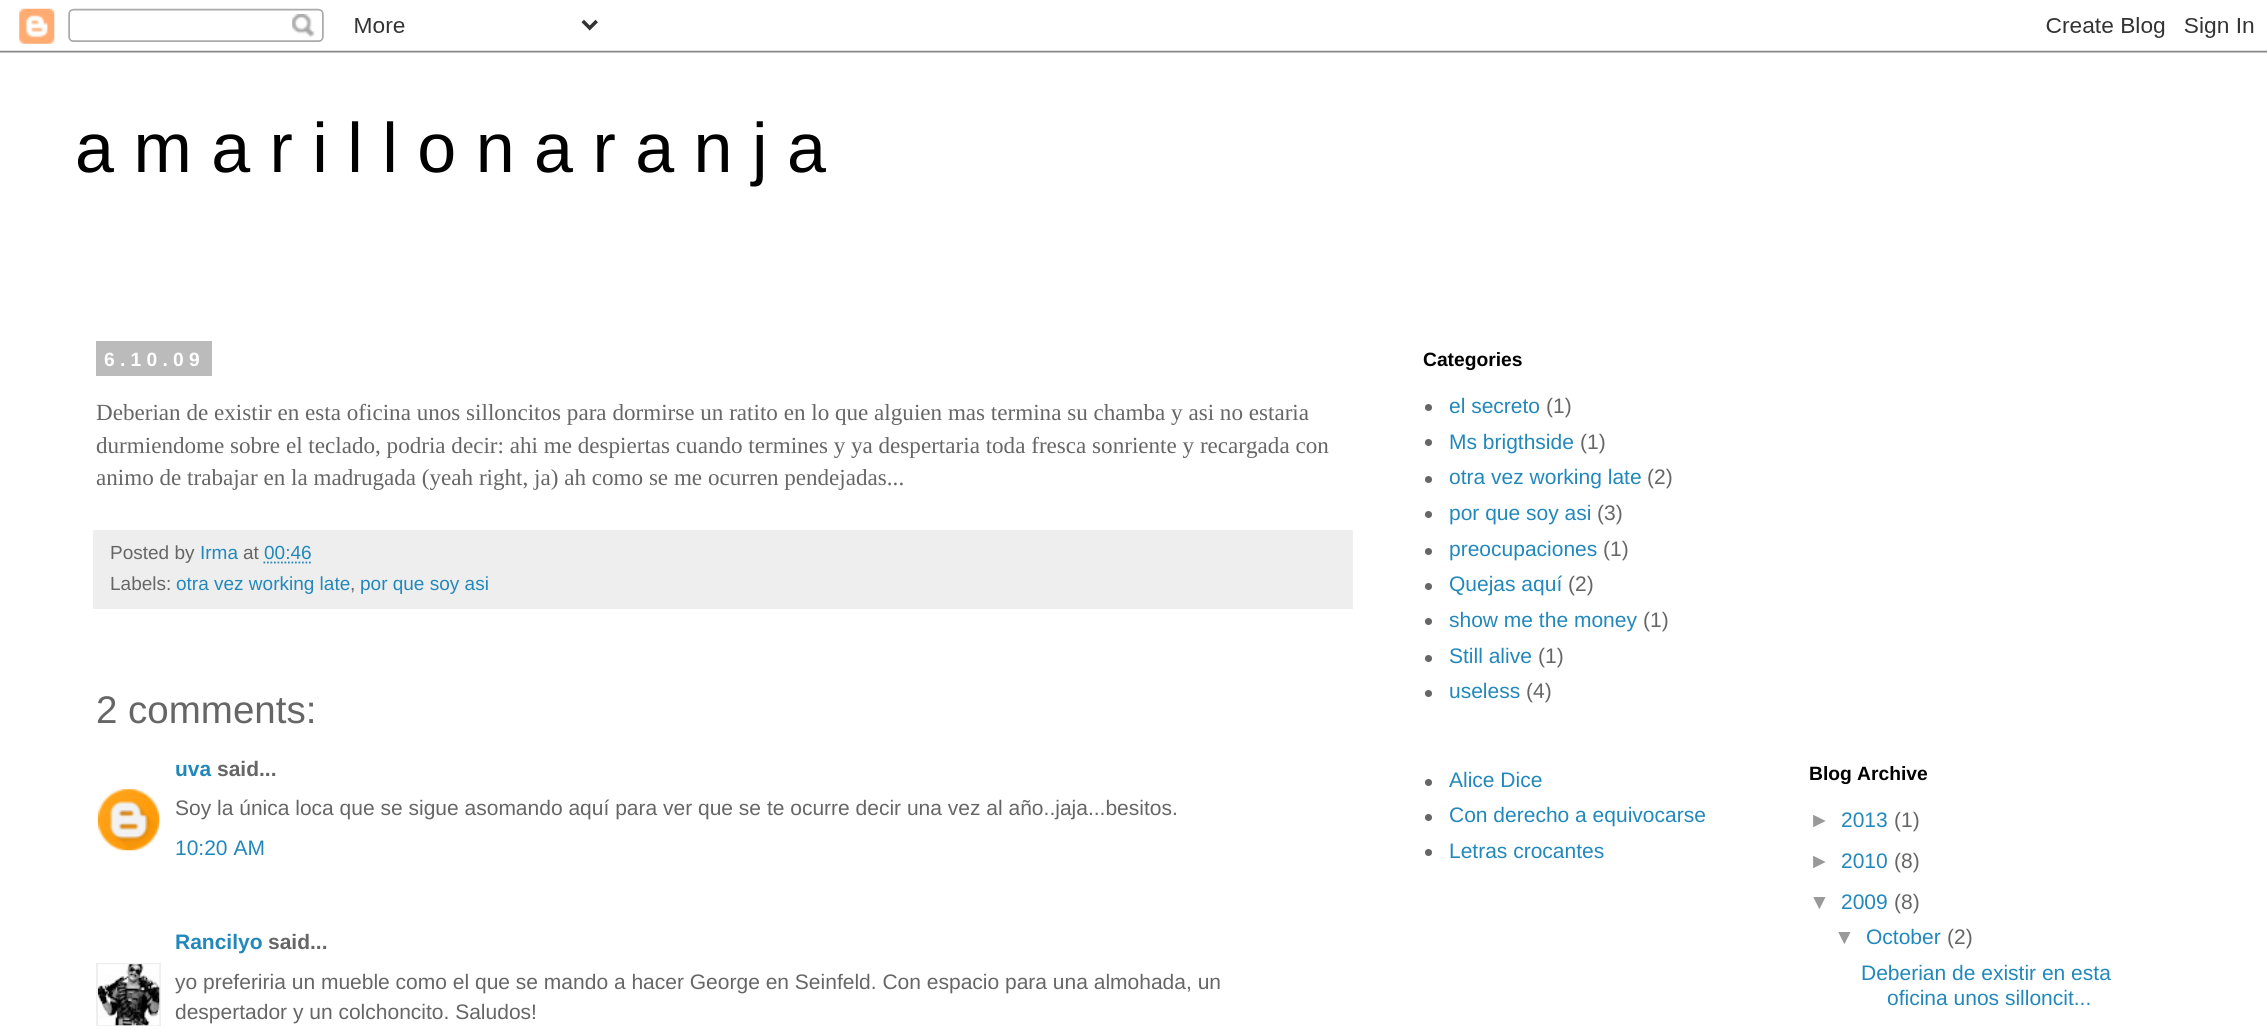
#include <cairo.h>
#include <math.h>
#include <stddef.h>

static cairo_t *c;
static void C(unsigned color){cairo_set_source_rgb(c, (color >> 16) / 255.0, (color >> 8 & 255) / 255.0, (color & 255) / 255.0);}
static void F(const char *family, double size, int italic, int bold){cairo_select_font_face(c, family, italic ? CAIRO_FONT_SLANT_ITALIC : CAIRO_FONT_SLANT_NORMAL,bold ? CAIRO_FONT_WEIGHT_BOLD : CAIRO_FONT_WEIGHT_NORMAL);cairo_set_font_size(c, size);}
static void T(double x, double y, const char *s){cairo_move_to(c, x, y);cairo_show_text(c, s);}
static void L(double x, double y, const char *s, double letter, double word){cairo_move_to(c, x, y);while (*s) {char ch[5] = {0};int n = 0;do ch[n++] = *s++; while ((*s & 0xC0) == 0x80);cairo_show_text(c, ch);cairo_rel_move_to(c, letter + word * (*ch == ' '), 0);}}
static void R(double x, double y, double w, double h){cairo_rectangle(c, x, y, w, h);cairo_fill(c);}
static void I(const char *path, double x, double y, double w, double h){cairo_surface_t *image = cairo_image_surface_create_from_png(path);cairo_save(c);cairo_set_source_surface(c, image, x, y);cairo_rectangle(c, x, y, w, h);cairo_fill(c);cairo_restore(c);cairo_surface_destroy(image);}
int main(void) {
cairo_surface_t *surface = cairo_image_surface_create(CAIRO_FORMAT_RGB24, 2267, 1029);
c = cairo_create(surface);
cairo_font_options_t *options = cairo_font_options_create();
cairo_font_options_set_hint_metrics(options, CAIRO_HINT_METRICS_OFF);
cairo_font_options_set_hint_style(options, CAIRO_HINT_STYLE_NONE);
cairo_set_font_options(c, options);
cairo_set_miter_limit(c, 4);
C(0xffffff);
cairo_paint(c);
I("1.png",0,8,2267,45);
F("Liberation Sans",70,0,0);
C(0x000000);
T(75,172,"a m a r i l l o n a r a n j a");
C(0xbbbbbb);
R(96,341,116,35);
F("Liberation Sans",19.25,0,1);
C(0xffffff);
L(104,366,"6.10.09",5.25,0);
F("Liberation Serif",23.1,0,0);
C(0x666666);
T(96,420,"Deberian de existir en esta oficina unos silloncitos para dormirse un ratito en lo que alguien mas termina su chamba y asi no estaria");
T(96,453,"durmiendome sobre el teclado, podria decir: ahi me despiertas cuando termines y ya despertaria toda fresca sonriente y recargada con");
T(96,485,"animo de trabajar en la madrugada (yeah right, ja) ah como se me ocurren pendejadas...");
C(0xeeeeee);
R(93,530,1260,79);
F("Liberation Sans",19,0,0);
C(0x666666);
T(110,559,"Posted by");
C(0x2288bb);
T(200,559,"Irma");
C(0x666666);
T(243,559,"at");
C(0x2288bb);
T(264,559,"00:46");
cairo_new_path(c);
cairo_move_to(c,263.5,562.5);
cairo_line_to(c,311,562.5);
cairo_set_line_width(c,1.8);
cairo_set_dash(c,(double[]){1.75,1.75},2,0);
cairo_stroke(c);
C(0x666666);
T(110,590,"Labels:");
C(0x2288bb);
T(176,590,"otra vez working late");
C(0x666666);
T(350,590,",");
C(0x2288bb);
T(360,590,"por que soy asi");
F("Liberation Sans",38.5,0,0);
C(0x666666);
T(96,723,"2 comments:");
F("Liberation Sans",21,0,1);
C(0x2288bb);
T(175,776,"uva");
C(0x666666);
T(217,776,"said...");
I("2.png",98,789,62,62);
F("Liberation Sans",21,0,0);
T(175,815,"Soy la única loca que se sigue asomando aquí para ver que se te ocurre decir una vez al año..jaja...besitos.");
C(0x2288bb);
T(175,855,"10:20 AM");
F("Liberation Sans",21,0,1);
T(175,949,"Rancilyo");
C(0x666666);
T(268,949,"said...");
cairo_save(c);
cairo_rectangle(c,96,963,65,63);
cairo_clip(c);
cairo_rectangle(c,97,964,63,62);
C(0xeeeeee);
cairo_set_line_width(c,2);
cairo_set_dash(c,NULL,0,0);
cairo_stroke(c);
cairo_restore(c);
I("3.png",98,964,62,62);
F("Liberation Sans",21,0,0);
T(175,989,"yo preferiria un mueble como el que se mando a hacer George en Seinfeld. Con espacio para una almohada, un");
T(175,1019,"despertador y un colchoncito. Saludos!");
F("Liberation Sans",19.25,0,1);
C(0x000000);
T(1423,366,"Categories");
C(0x666666);
cairo_new_path(c);
cairo_arc(c,1428.5,407.5,3.5,0,2 * M_PI);
cairo_fill(c);
F("Liberation Sans",21,0,0);
C(0x2288bb);
T(1449,413,"el secreto");
C(0x666666);
T(1546,413,"(1)");
cairo_new_path(c);
cairo_arc(c,1428.5,442.5,3.5,0,2 * M_PI);
cairo_fill(c);
C(0x2288bb);
T(1449,449,"Ms brigthside");
C(0x666666);
T(1580,449,"(1)");
cairo_new_path(c);
cairo_arc(c,1428.5,479.5,3.5,0,2 * M_PI);
cairo_fill(c);
C(0x2288bb);
T(1449,484,"otra vez working late");
C(0x666666);
T(1647,484,"(2)");
cairo_new_path(c);
cairo_arc(c,1428.5,514.5,3.5,0,2 * M_PI);
cairo_fill(c);
C(0x2288bb);
T(1449,520,"por que soy asi");
C(0x666666);
T(1597,520,"(3)");
cairo_new_path(c);
cairo_arc(c,1428.5,551.5,3.5,0,2 * M_PI);
cairo_fill(c);
C(0x2288bb);
T(1449,556,"preocupaciones");
C(0x666666);
T(1603,556,"(1)");
cairo_new_path(c);
cairo_arc(c,1428.5,586.5,3.5,0,2 * M_PI);
cairo_fill(c);
C(0x2288bb);
T(1449,591,"Quejas aquí");
C(0x666666);
T(1568,591,"(2)");
cairo_new_path(c);
cairo_arc(c,1428.5,621.5,3.5,0,2 * M_PI);
cairo_fill(c);
C(0x2288bb);
T(1449,627,"show me the money");
C(0x666666);
T(1643,627,"(1)");
cairo_new_path(c);
cairo_arc(c,1428.5,658.5,3.5,0,2 * M_PI);
cairo_fill(c);
C(0x2288bb);
T(1449,663,"Still alive");
C(0x666666);
T(1538,663,"(1)");
cairo_new_path(c);
cairo_arc(c,1428.5,693.5,3.5,0,2 * M_PI);
cairo_fill(c);
C(0x2288bb);
T(1449,698,"useless");
C(0x666666);
T(1526,698,"(4)");
cairo_new_path(c);
cairo_arc(c,1428.5,782.5,3.5,0,2 * M_PI);
cairo_fill(c);
C(0x2288bb);
T(1449,787,"Alice Dice");
C(0x666666);
cairo_new_path(c);
cairo_arc(c,1428.5,817.5,3.5,0,2 * M_PI);
cairo_fill(c);
C(0x2288bb);
T(1449,822,"Con derecho a equivocarse");
C(0x666666);
cairo_new_path(c);
cairo_arc(c,1428.5,852.5,3.5,0,2 * M_PI);
cairo_fill(c);
C(0x2288bb);
T(1449,858,"Letras crocantes");
F("Liberation Sans",19.25,0,1);
C(0x000000);
T(1809,780,"Blog Archive");
F("Liberation Sans",21,0,0);
C(0x999999);
T(1809,827,"►");
C(0x2288bb);
T(1841,827,"2013");
C(0x666666);
T(1894,827,"(1)");
C(0x999999);
T(1809,868,"►");
C(0x2288bb);
T(1841,868,"2010");
C(0x666666);
T(1894,868,"(8)");
C(0x999999);
T(1809,909,"▼");
C(0x2288bb);
T(1841,909,"2009");
C(0x666666);
T(1894,909,"(8)");
C(0x999999);
T(1834,944,"▼");
C(0x2288bb);
T(1866,944,"October");
C(0x666666);
T(1947,944,"(2)");
C(0x2288bb);
T(1861,980,"Deberian de existir en esta");
T(1887,1005,"oficina unos silloncit...");
cairo_surface_write_to_png(surface, "o.png");
cairo_font_options_destroy(options);
cairo_destroy(c);
cairo_surface_destroy(surface);
return 0;
}
